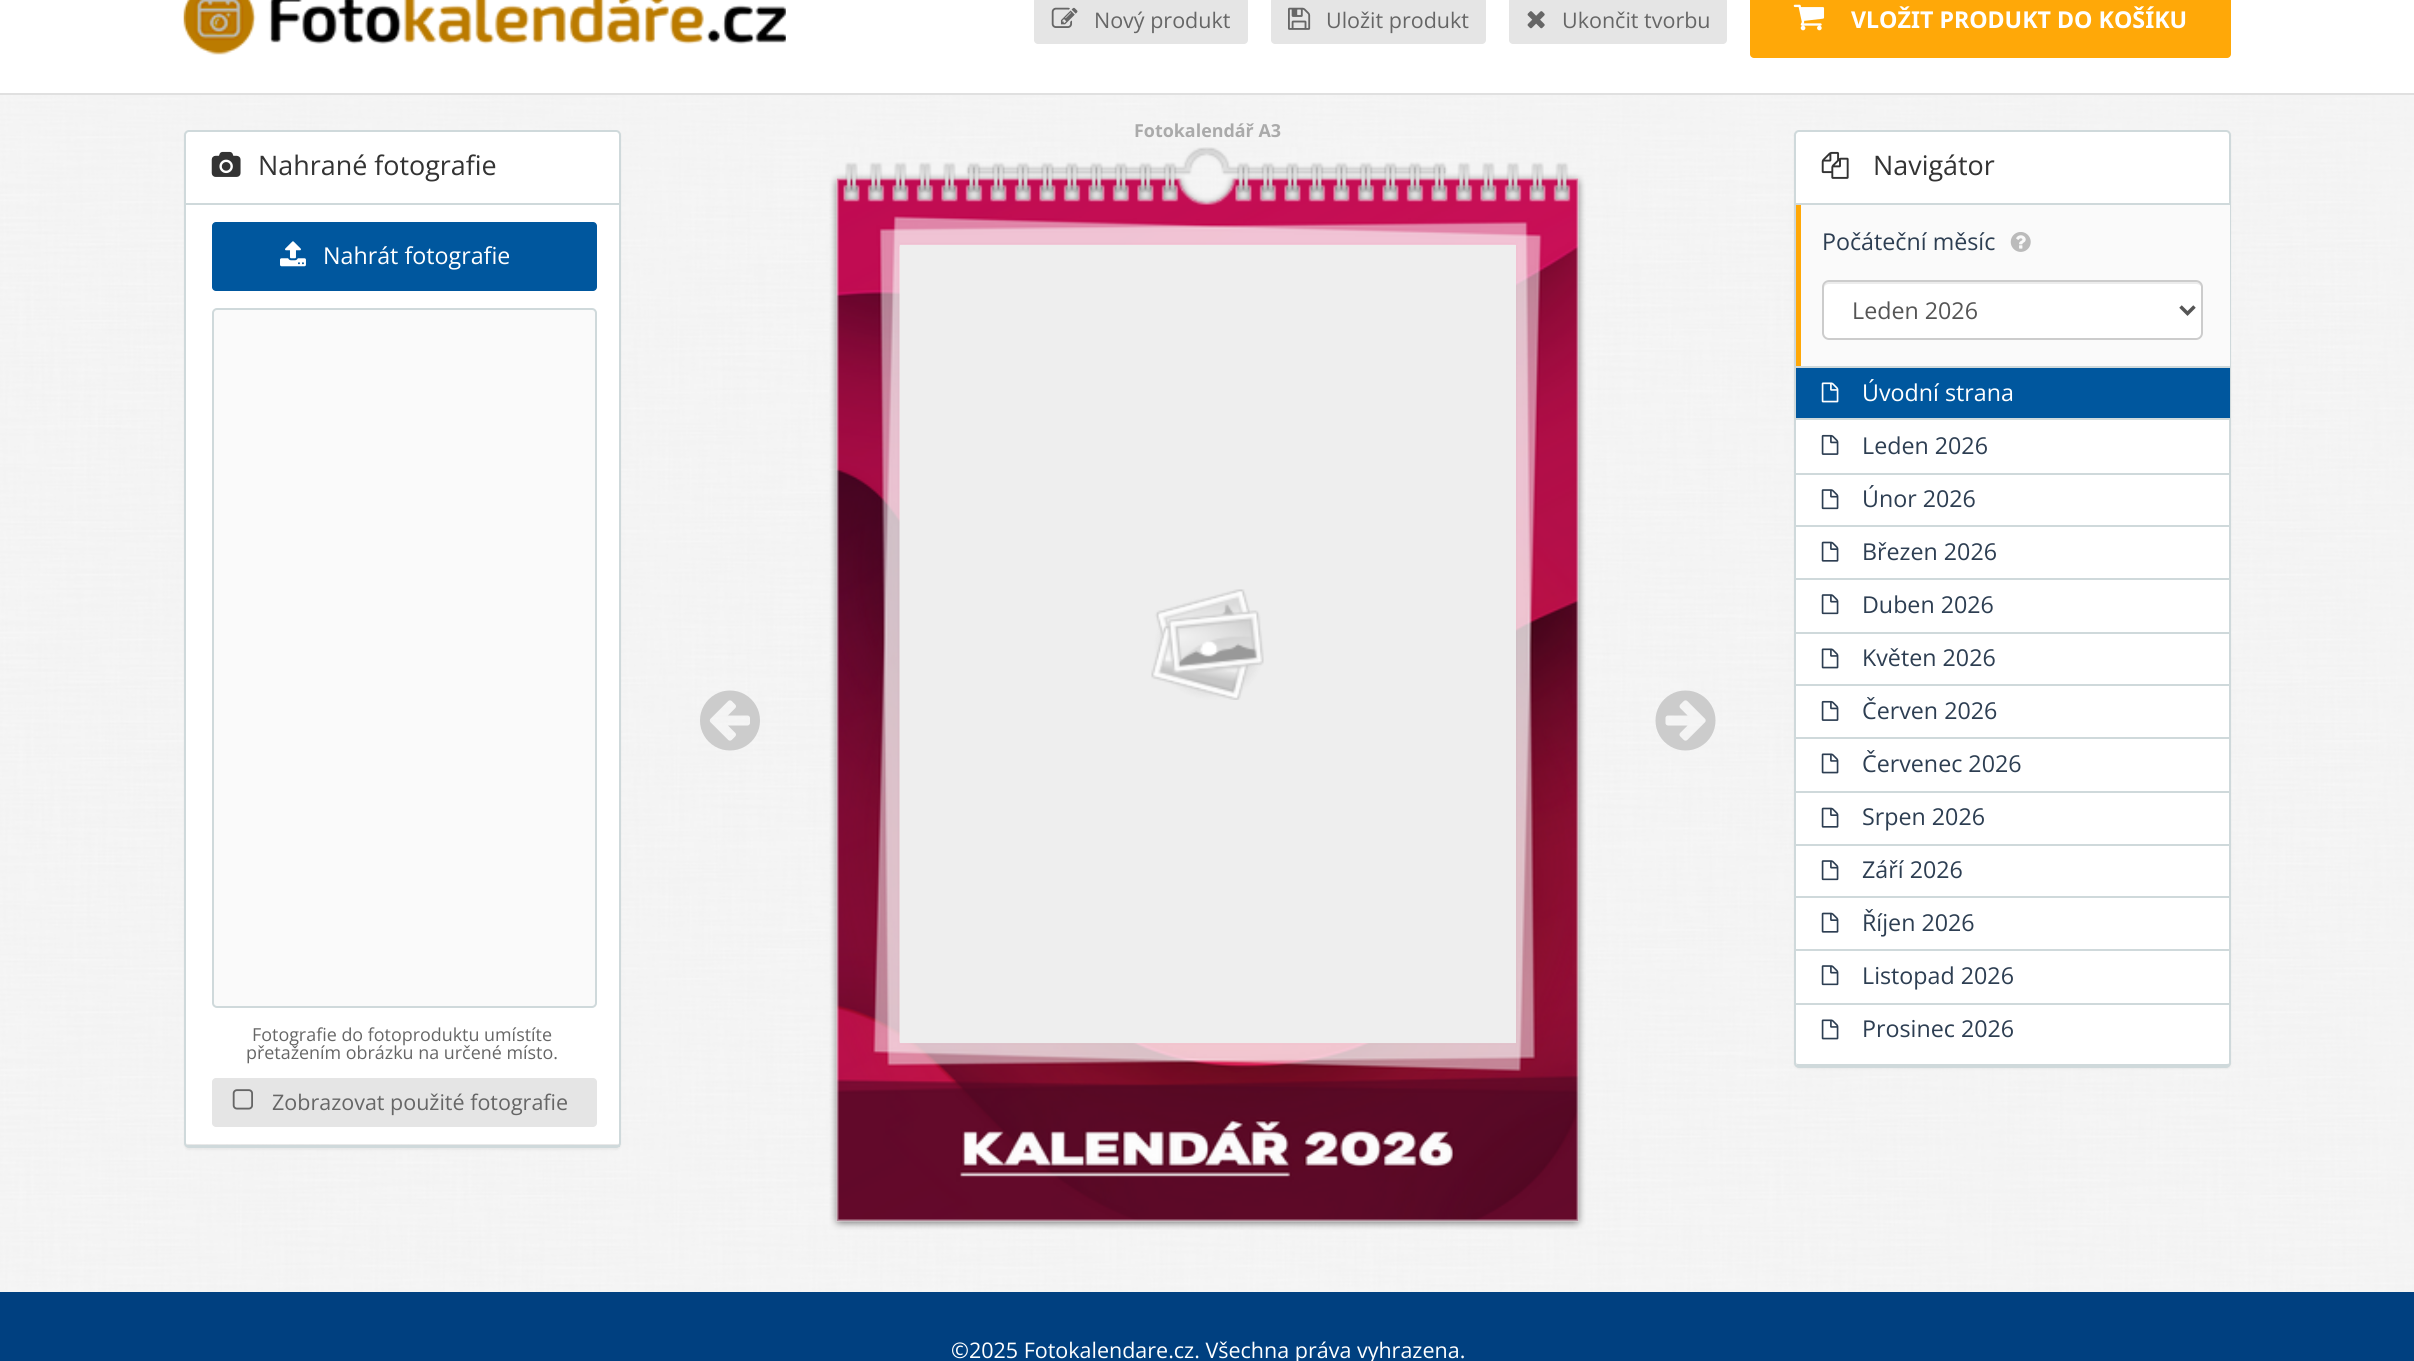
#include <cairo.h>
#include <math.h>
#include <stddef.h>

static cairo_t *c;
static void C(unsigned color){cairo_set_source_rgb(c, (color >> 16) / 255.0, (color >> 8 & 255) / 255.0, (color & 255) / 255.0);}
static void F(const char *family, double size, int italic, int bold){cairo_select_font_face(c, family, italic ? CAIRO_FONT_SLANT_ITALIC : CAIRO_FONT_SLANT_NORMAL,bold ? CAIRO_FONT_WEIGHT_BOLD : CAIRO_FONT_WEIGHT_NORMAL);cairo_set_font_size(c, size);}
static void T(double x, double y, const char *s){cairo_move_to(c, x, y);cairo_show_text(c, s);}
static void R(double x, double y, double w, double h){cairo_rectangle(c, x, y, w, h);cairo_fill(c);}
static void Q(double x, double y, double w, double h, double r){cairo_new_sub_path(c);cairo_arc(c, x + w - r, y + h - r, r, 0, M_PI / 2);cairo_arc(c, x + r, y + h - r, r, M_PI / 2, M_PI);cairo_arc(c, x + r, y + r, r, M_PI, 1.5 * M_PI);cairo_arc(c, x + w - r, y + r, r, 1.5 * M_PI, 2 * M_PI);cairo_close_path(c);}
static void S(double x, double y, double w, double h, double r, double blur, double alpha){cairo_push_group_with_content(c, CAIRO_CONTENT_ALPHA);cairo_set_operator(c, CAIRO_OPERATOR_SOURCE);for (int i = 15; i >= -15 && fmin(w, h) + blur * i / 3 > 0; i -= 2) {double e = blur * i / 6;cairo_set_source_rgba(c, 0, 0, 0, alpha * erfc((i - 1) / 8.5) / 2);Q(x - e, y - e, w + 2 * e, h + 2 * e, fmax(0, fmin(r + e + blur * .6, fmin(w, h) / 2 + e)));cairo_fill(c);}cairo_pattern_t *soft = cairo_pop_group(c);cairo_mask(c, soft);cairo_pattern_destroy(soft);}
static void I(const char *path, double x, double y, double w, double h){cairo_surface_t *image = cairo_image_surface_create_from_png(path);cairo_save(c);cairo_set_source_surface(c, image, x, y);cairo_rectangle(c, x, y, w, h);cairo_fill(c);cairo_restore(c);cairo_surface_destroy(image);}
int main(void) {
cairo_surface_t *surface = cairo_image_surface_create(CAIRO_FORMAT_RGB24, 2414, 1361);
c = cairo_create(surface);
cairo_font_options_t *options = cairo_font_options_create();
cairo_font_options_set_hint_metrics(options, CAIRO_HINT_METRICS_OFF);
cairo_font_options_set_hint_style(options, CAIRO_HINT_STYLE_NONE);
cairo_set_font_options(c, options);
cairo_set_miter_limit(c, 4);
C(0xffffff);
cairo_paint(c);
I("1.png",0,95,2414,1197);
C(0xe0e0e0);
R(0,93,2414,2);
I("2.png",183,0,603,55);
C(0xe5e5e5);
Q(1034,-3,214,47,4);
cairo_fill(c);
I("3.png",1051,7,27,21);
F("Open Sans",21.5,0,0);
C(0x666666);
T(1094,28,"Nový produkt");
C(0xe5e5e5);
Q(1271,-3,215,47,4);
cairo_fill(c);
I("4.png",1288,7,23,23);
C(0x666666);
T(1326,28,"Uložit produkt");
C(0xe5e5e5);
Q(1509,-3,218,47,4);
cairo_fill(c);
I("5.png",1527,11,18,18);
C(0x666666);
T(1562,28,"Ukončit tvorbu");
C(0xffa808);
Q(1750,-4,481,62,4);
cairo_fill(c);
I("6.png",1793,4,32,27);
F("Noto Sans",23.25,0,1);
C(0xffffff);
T(1851,28,"VLOŽIT PRODUKT DO KOŠÍKU");
F("Open Sans",17.9,0,1);
C(0xaaaaaa);
T(1134,137,"Fotokalendář A3");
I("7.png",700,690,60,61);
I("9.png",836,178,743,1044);
C(0xeeeeee);
R(900,245,616,798);
I("10.png",1151,589,113,111);
I("8.png",829,147,757,1083);
I("11.png",1655,690,61,61);
C(0x000000);
S(184,131,437,1019,5,1,.05);
C(0xffffff);
cairo_new_path(c);
cairo_move_to(c,189,131);
cairo_line_to(c,616,131);
cairo_curve_to(c,618,131,620,133,620,135);
cairo_line_to(c,620,1143);
cairo_curve_to(c,620,1144,618,1144,616,1144);
cairo_line_to(c,189,1144);
cairo_curve_to(c,187,1144,186,1144,186,1143);
cairo_line_to(c,186,135);
cairo_curve_to(c,186,133,187,131,189,131);
cairo_close_path(c);
cairo_fill(c);
Q(185,131,435,1016,4);
C(0xcfd9db);
cairo_stroke(c);
R(187,1145,433,2);
R(186,203,434,2);
I("12.png",211,151,30,26);
F("Open Sans",26.9,0,0);
C(0x333333);
T(258,175,"Nahrané fotografie");
C(0x00579e);
Q(212,222,385,69,4);
cairo_fill(c);
I("13.png",280,241,26,26);
F("Open Sans",23.25,0,0);
C(0xffffff);
T(323,264,"Nahrát fotografie");
C(0xfafafa);
Q(213,309,383,698,4);
cairo_fill_preserve(c);
C(0xcfd9db);
cairo_stroke(c);
F("Open Sans",17.9,0,0);
C(0x666666);
T(252,1041,"Fotografie do fotoproduktu umístíte");
T(246,1059,"přetažením obrázku na určené místo.");
C(0xe5e5e5);
Q(212,1078,385,49,4);
cairo_fill(c);
I("14.png",232,1089,21,21);
F("Open Sans",21.5,0,0);
C(0x666666);
T(272,1110,"Zobrazovat použité fotografie");
C(0x000000);
S(1794,131,437,938,5,1,.05);
C(0xffffff);
cairo_new_path(c);
cairo_move_to(c,1799,131);
cairo_line_to(c,2226,131);
cairo_curve_to(c,2228,131,2230,133,2230,135);
cairo_line_to(c,2230,1062);
cairo_curve_to(c,2230,1063,2228,1064,2226,1064);
cairo_line_to(c,1799,1064);
cairo_curve_to(c,1797,1064,1796,1063,1796,1062);
cairo_line_to(c,1796,135);
cairo_curve_to(c,1796,133,1797,131,1799,131);
cairo_close_path(c);
cairo_fill(c);
Q(1795,131,435,936,4);
C(0xcfd9db);
cairo_stroke(c);
R(1797,1064,433,2);
R(1796,203,434,2);
I("15.png",1821,151,28,28);
F("Open Sans",26.9,0,0);
C(0x333333);
T(1873,175,"Navigátor");
C(0xfafafa);
R(1801,205,429,161);
C(0xffa808);
R(1796,205,5,161);
F("Open Sans",23.25,0,0);
C(0x2d3e52);
T(1822,250,"Počáteční měsíc");
I("16.png",2010,232,21,20);
C(0xffffff);
Q(1822,280,381,60,7);
cairo_fill(c);
C(0xececec);
cairo_new_path(c);
cairo_move_to(c,1829,284);
cairo_line_to(c,2196,284);
cairo_curve_to(c,2199,284,2202,286,2202,289);
cairo_line_to(c,2202,287);
cairo_curve_to(c,2202,284,2200,282,2197,282);
cairo_line_to(c,1829,282);
cairo_curve_to(c,1826,282,1824,284,1824,287);
cairo_line_to(c,1824,289);
cairo_curve_to(c,1824,286,1826,284,1829,284);
cairo_close_path(c);
cairo_fill(c);
Q(1823,281,379,58,6);
C(0xcccccc);
cairo_stroke(c);
cairo_new_path(c);
cairo_move_to(c,2180.5,306.5);
cairo_line_to(c,2187.5,313.5);
cairo_line_to(c,2194.5,306.5);
C(0x555555);
cairo_set_line_width(c,3.5);
cairo_stroke(c);
T(1852,319,"Leden 2026");
C(0x00579e);
R(1796,368,434,50);
C(0xcfd9db);
R(1796,366,434,2);
I("17.png",1821,382,18,21);
C(0xffffff);
T(1862,401,"Úvodní strana");
C(0xcfd9db);
R(1796,418,434,2);
I("18.png",1821,434,18,21);
C(0x2d3e52);
T(1862,454,"Leden 2026");
C(0xcfd9db);
R(1796,473,434,2);
I("19.png",1821,489,18,21);
C(0x2d3e52);
T(1862,507,"Únor 2026");
C(0xcfd9db);
R(1796,525,434,2);
I("20.png",1821,541,18,21);
C(0x2d3e52);
T(1862,560,"Březen 2026");
C(0xcfd9db);
R(1796,578,434,2);
I("19.png",1821,594,18,21);
C(0x2d3e52);
T(1862,613,"Duben 2026");
C(0xcfd9db);
R(1796,632,434,2);
I("21.png",1821,648,18,21);
C(0x2d3e52);
T(1862,666,"Květen 2026");
C(0xcfd9db);
R(1796,684,434,2);
I("18.png",1821,700,18,21);
C(0x2d3e52);
T(1862,719,"Červen 2026");
C(0xcfd9db);
R(1796,737,434,2);
I("21.png",1821,753,18,21);
C(0x2d3e52);
T(1862,772,"Červenec 2026");
C(0xcfd9db);
R(1796,791,434,2);
I("20.png",1821,807,18,21);
C(0x2d3e52);
T(1862,825,"Srpen 2026");
C(0xcfd9db);
R(1796,844,434,2);
I("19.png",1821,860,18,21);
C(0x2d3e52);
T(1862,878,"Září 2026");
C(0xcfd9db);
R(1796,896,434,2);
I("20.png",1821,912,18,21);
C(0x2d3e52);
T(1862,931,"Říjen 2026");
C(0xcfd9db);
R(1796,949,434,2);
I("19.png",1821,965,18,21);
C(0x2d3e52);
T(1862,984,"Listopad 2026");
C(0xcfd9db);
R(1796,1003,434,2);
I("21.png",1821,1019,18,21);
C(0x2d3e52);
T(1862,1037,"Prosinec 2026");
C(0x004080);
R(0,1292,2414,69);
F("Open Sans",21.5,0,0);
C(0xffffff);
T(951,1358,"©2025 Fotokalendare.cz. Všechna práva vyhrazena.");
cairo_surface_write_to_png(surface, "o.png");
cairo_font_options_destroy(options);
cairo_destroy(c);
cairo_surface_destroy(surface);
return 0;
}
